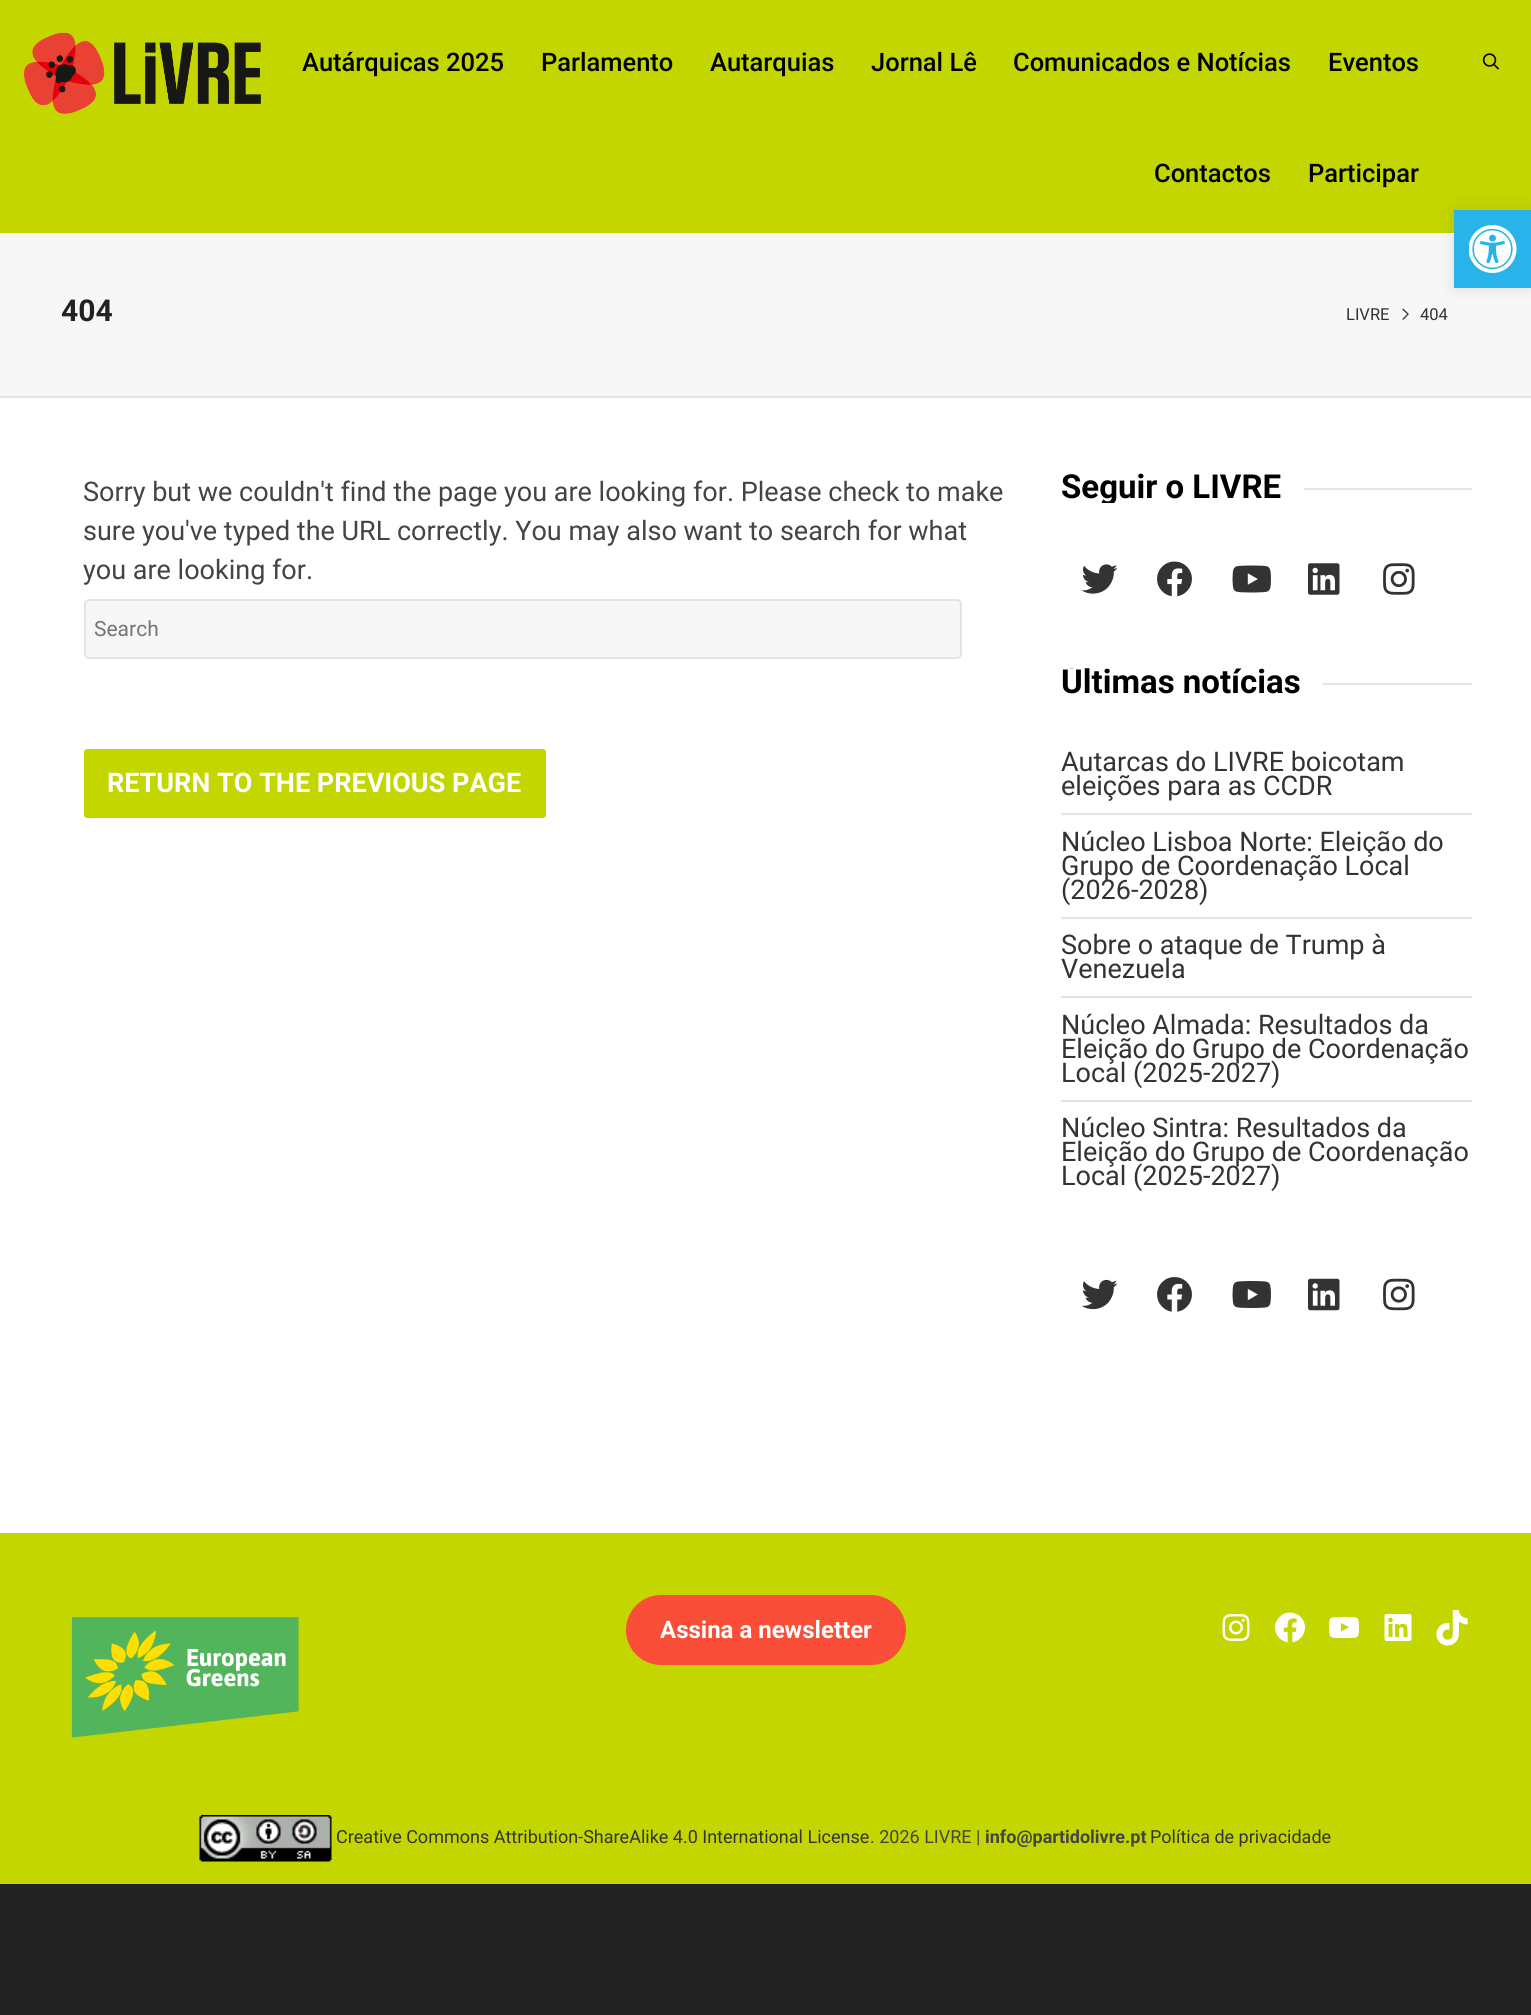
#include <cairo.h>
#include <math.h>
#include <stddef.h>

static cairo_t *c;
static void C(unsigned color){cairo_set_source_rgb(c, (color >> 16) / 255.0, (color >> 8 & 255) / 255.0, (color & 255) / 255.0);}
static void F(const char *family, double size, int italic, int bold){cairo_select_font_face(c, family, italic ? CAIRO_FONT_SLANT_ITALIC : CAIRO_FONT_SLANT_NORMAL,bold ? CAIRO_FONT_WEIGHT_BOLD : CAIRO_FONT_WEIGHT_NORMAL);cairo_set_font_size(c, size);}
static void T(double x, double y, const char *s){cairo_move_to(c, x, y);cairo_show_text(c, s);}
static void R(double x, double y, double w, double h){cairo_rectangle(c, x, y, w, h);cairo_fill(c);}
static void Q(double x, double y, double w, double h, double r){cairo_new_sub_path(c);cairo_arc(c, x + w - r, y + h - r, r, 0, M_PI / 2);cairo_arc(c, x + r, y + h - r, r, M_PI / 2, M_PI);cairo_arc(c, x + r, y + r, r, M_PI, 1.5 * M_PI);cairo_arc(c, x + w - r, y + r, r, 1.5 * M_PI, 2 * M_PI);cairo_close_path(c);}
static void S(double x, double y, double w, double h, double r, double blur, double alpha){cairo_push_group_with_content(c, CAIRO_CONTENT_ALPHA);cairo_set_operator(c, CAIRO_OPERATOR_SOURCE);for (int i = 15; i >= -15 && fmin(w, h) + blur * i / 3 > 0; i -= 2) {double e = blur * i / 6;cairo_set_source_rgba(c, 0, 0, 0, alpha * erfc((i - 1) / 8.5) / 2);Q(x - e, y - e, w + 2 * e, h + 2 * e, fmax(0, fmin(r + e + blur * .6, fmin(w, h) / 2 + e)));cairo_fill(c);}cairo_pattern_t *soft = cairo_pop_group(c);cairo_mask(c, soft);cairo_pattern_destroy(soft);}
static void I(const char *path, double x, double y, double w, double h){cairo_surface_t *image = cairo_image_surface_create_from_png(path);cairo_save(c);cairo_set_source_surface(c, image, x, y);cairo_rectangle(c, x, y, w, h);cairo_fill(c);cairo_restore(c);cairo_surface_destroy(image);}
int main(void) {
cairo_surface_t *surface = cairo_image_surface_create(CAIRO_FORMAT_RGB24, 1531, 2015);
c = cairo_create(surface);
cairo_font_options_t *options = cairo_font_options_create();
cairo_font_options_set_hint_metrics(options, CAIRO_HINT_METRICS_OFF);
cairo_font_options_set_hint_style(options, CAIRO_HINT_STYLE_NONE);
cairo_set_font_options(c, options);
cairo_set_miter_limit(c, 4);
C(0x222222);
cairo_paint(c);
C(0xc4d600);
R(0,0,1531,233);
I("1.png",23,32,238,82);
F("Roboto Medium",25.5,0,0);
C(0x000000);
T(302,71,"Autárquicas 2025");
T(541,71,"Parlamento");
T(710,71,"Autarquias");
T(871,71,"Jornal Lê");
T(1013,71,"Comunicados e Notícias");
T(1328,71,"Eventos");
T(1154,182,"Contactos");
T(1308,182,"Participar");
I("2.png",1482,53,17,17);
C(0xffffff);
R(0,398,1531,1135);
C(0xf7f7f7);
R(0,233,1531,163);
C(0xe4e4e4);
R(0,396,1531,2);
F("Roboto",30,0,1);
C(0x222222);
T(61,321,"404");
F("Roboto",16.5,0,0);
C(0x333333);
T(1346,320,"LIVRE");
I("3.png",1402,308,7,12);
T(1420,320,"404");
F("Roboto",27,0,0);
C(0x444444);
T(83,501,"Sorry but we couldn't find the page you are looking for. Please check to make");
T(83,540,"sure you've typed the URL correctly. You may also want to search for what");
T(83,579,"you are looking for.");
C(0xf7f7f7);
Q(85,600,876,58,4);
cairo_fill_preserve(c);
C(0xe4e4e4);
cairo_stroke(c);
F("Roboto",21,0,0);
C(0x757575);
T(94,636,"Search");
C(0xc4d600);
Q(84,749,462,69,3);
cairo_fill(c);
F("Roboto",27,0,1);
C(0xffffff);
T(107,792,"RETURN TO THE PREVIOUS PAGE");
cairo_save(c);
cairo_rectangle(c,1061,473,411,30);
cairo_clip(c);
F("Roboto",33,0,1);
C(0x000000);
T(1061,498,"Seguir o LIVRE");
cairo_restore(c);
C(0xe4e4e4);
R(1304,488,168,2);
I("4.png",1081,564,37,30);
I("5.png",1157,561,35,36);
I("6.png",1232,565,39,28);
I("7.png",1308,563,32,32);
I("8.png",1383,563,32,32);
cairo_save(c);
cairo_rectangle(c,1061,668,411,30);
cairo_clip(c);
F("Roboto",33,0,1);
C(0x000000);
T(1061,693,"Últimas notícias");
cairo_restore(c);
R(1323,683,149,2);
F("Roboto",27,0,0);
C(0x333333);
T(1061,771,"Autarcas do LIVRE boicotam");
T(1061,795,"eleições para as CCDR");
C(0xe4e4e4);
R(1061,813,411,2);
C(0x333333);
T(1061,851,"Núcleo Lisboa Norte: Eleição do");
T(1061,875,"Grupo de Coordenação Local");
T(1061,899,"(2026-2028)");
C(0xe4e4e4);
R(1061,917,411,2);
C(0x333333);
T(1061,954,"Sobre o ataque de Trump à");
T(1061,978,"Venezuela");
C(0xe4e4e4);
R(1061,996,411,2);
C(0x333333);
T(1061,1034,"Núcleo Almada: Resultados da");
T(1061,1058,"Eleição do Grupo de Coordenação");
T(1061,1082,"Local (2025-2027)");
C(0xe4e4e4);
R(1061,1100,411,2);
C(0x333333);
T(1061,1137,"Núcleo Sintra: Resultados da");
T(1061,1161,"Eleição do Grupo de Coordenação");
T(1061,1185,"Local (2025-2027)");
I("9.png",1081,1279,37,31);
I("10.png",1157,1277,35,35);
I("11.png",1232,1281,39,27);
I("12.png",1308,1278,32,33);
I("13.png",1383,1278,32,33);
C(0xc4d600);
R(0,1533,1531,351);
I("14.png",71,1617,228,121);
C(0xfa4e38);
Q(626,1595,280,70,35);
cairo_fill(c);
F("Roboto",24,0,1);
C(0xffffff);
T(660,1638,"Assina a newsletter");
I("15.png",1222,1614,28,27);
I("16.png",1275,1612,30,31);
I("17.png",1329,1616,30,23);
I("18.png",1384,1614,28,27);
I("19.png",1436,1610,32,36);
I("20.png",199,1815,133,47);
F("Roboto",18,0,0);
C(0x333333);
T(336,1843,"Creative Commons Attribution-ShareAlike 4.0 International License");
C(0x444444);
T(870,1843,". 2026 LIVRE |");
F("Roboto",18,0,1);
T(985,1843,"info@partidolivre.pt");
F("Roboto",18,0,0);
C(0x333333);
T(1150,1843,"Política de privacidade");
C(0x000000);
S(1454,210,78,78,0,7.5,.1);
C(0x28b4eb);
R(1454,210,77,78);
I("21.png",1469,225,48,48);
cairo_surface_write_to_png(surface, "o.png");
cairo_font_options_destroy(options);
cairo_destroy(c);
cairo_surface_destroy(surface);
return 0;
}
